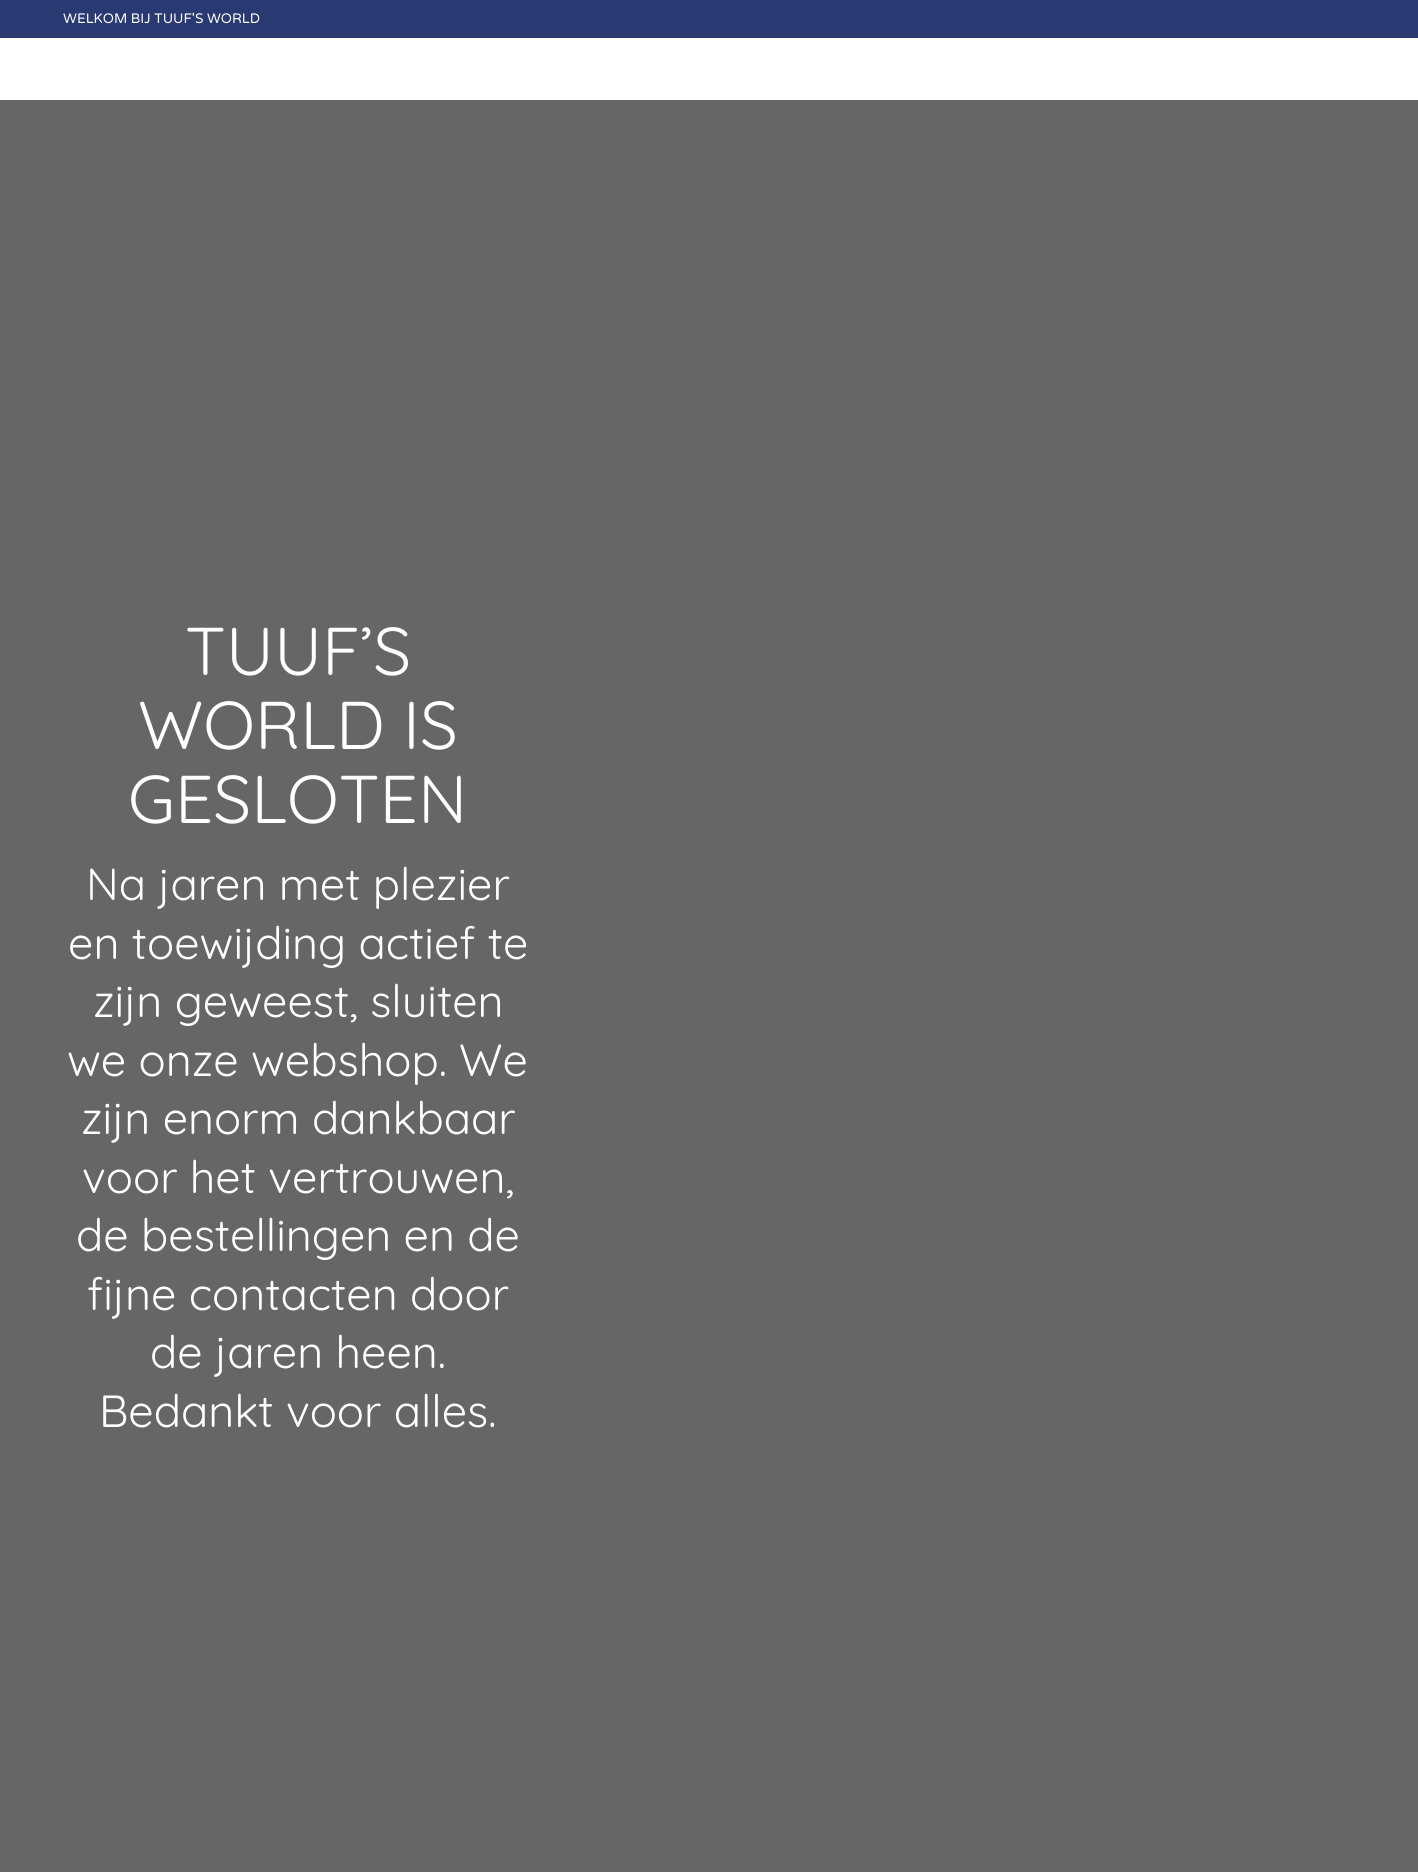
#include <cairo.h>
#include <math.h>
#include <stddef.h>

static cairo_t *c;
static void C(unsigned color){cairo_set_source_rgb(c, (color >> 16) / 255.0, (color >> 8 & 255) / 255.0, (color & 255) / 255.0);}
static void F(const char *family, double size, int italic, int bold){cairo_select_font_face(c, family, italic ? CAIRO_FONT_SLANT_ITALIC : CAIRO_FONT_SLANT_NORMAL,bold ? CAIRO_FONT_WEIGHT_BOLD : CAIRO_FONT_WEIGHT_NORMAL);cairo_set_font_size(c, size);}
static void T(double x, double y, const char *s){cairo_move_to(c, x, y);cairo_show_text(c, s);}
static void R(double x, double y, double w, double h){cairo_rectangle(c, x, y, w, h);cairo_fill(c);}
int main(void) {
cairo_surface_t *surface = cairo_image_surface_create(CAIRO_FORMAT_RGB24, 1418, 1872);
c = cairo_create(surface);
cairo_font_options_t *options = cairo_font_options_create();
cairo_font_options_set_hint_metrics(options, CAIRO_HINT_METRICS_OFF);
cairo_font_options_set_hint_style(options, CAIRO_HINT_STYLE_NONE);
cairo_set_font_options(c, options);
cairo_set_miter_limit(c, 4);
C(0xffffff);
cairo_paint(c);
C(0x293971);
R(0,0,1418,38);
F("Varela Round",13.75,0,0);
C(0xffffff);
T(63,23,"WELKOM BIJ TUUF'S WORLD");
C(0x666666);
R(0,100,1418,1772);
F("Quicksand",67.5,0,0);
C(0xffffff);
T(185,675,"TUUF’S");
T(138,749,"WORLD IS");
T(128,823,"GESLOTEN");
F("Quicksand",45,0,0);
T(86,900,"Na jaren met plezier");
T(68,959,"en toewijding actief te");
T(93,1017,"zijn geweest, sluiten");
T(67,1076,"we onze webshop. We");
T(81,1134,"zijn enorm dankbaar");
T(82,1193,"voor het vertrouwen,");
T(76,1251,"de bestellingen en de");
T(87,1310,"fijne contacten door");
T(150,1368,"de jaren heen.");
T(99,1427,"Bedankt voor alles.");
cairo_surface_write_to_png(surface, "o.png");
cairo_font_options_destroy(options);
cairo_destroy(c);
cairo_surface_destroy(surface);
return 0;
}
